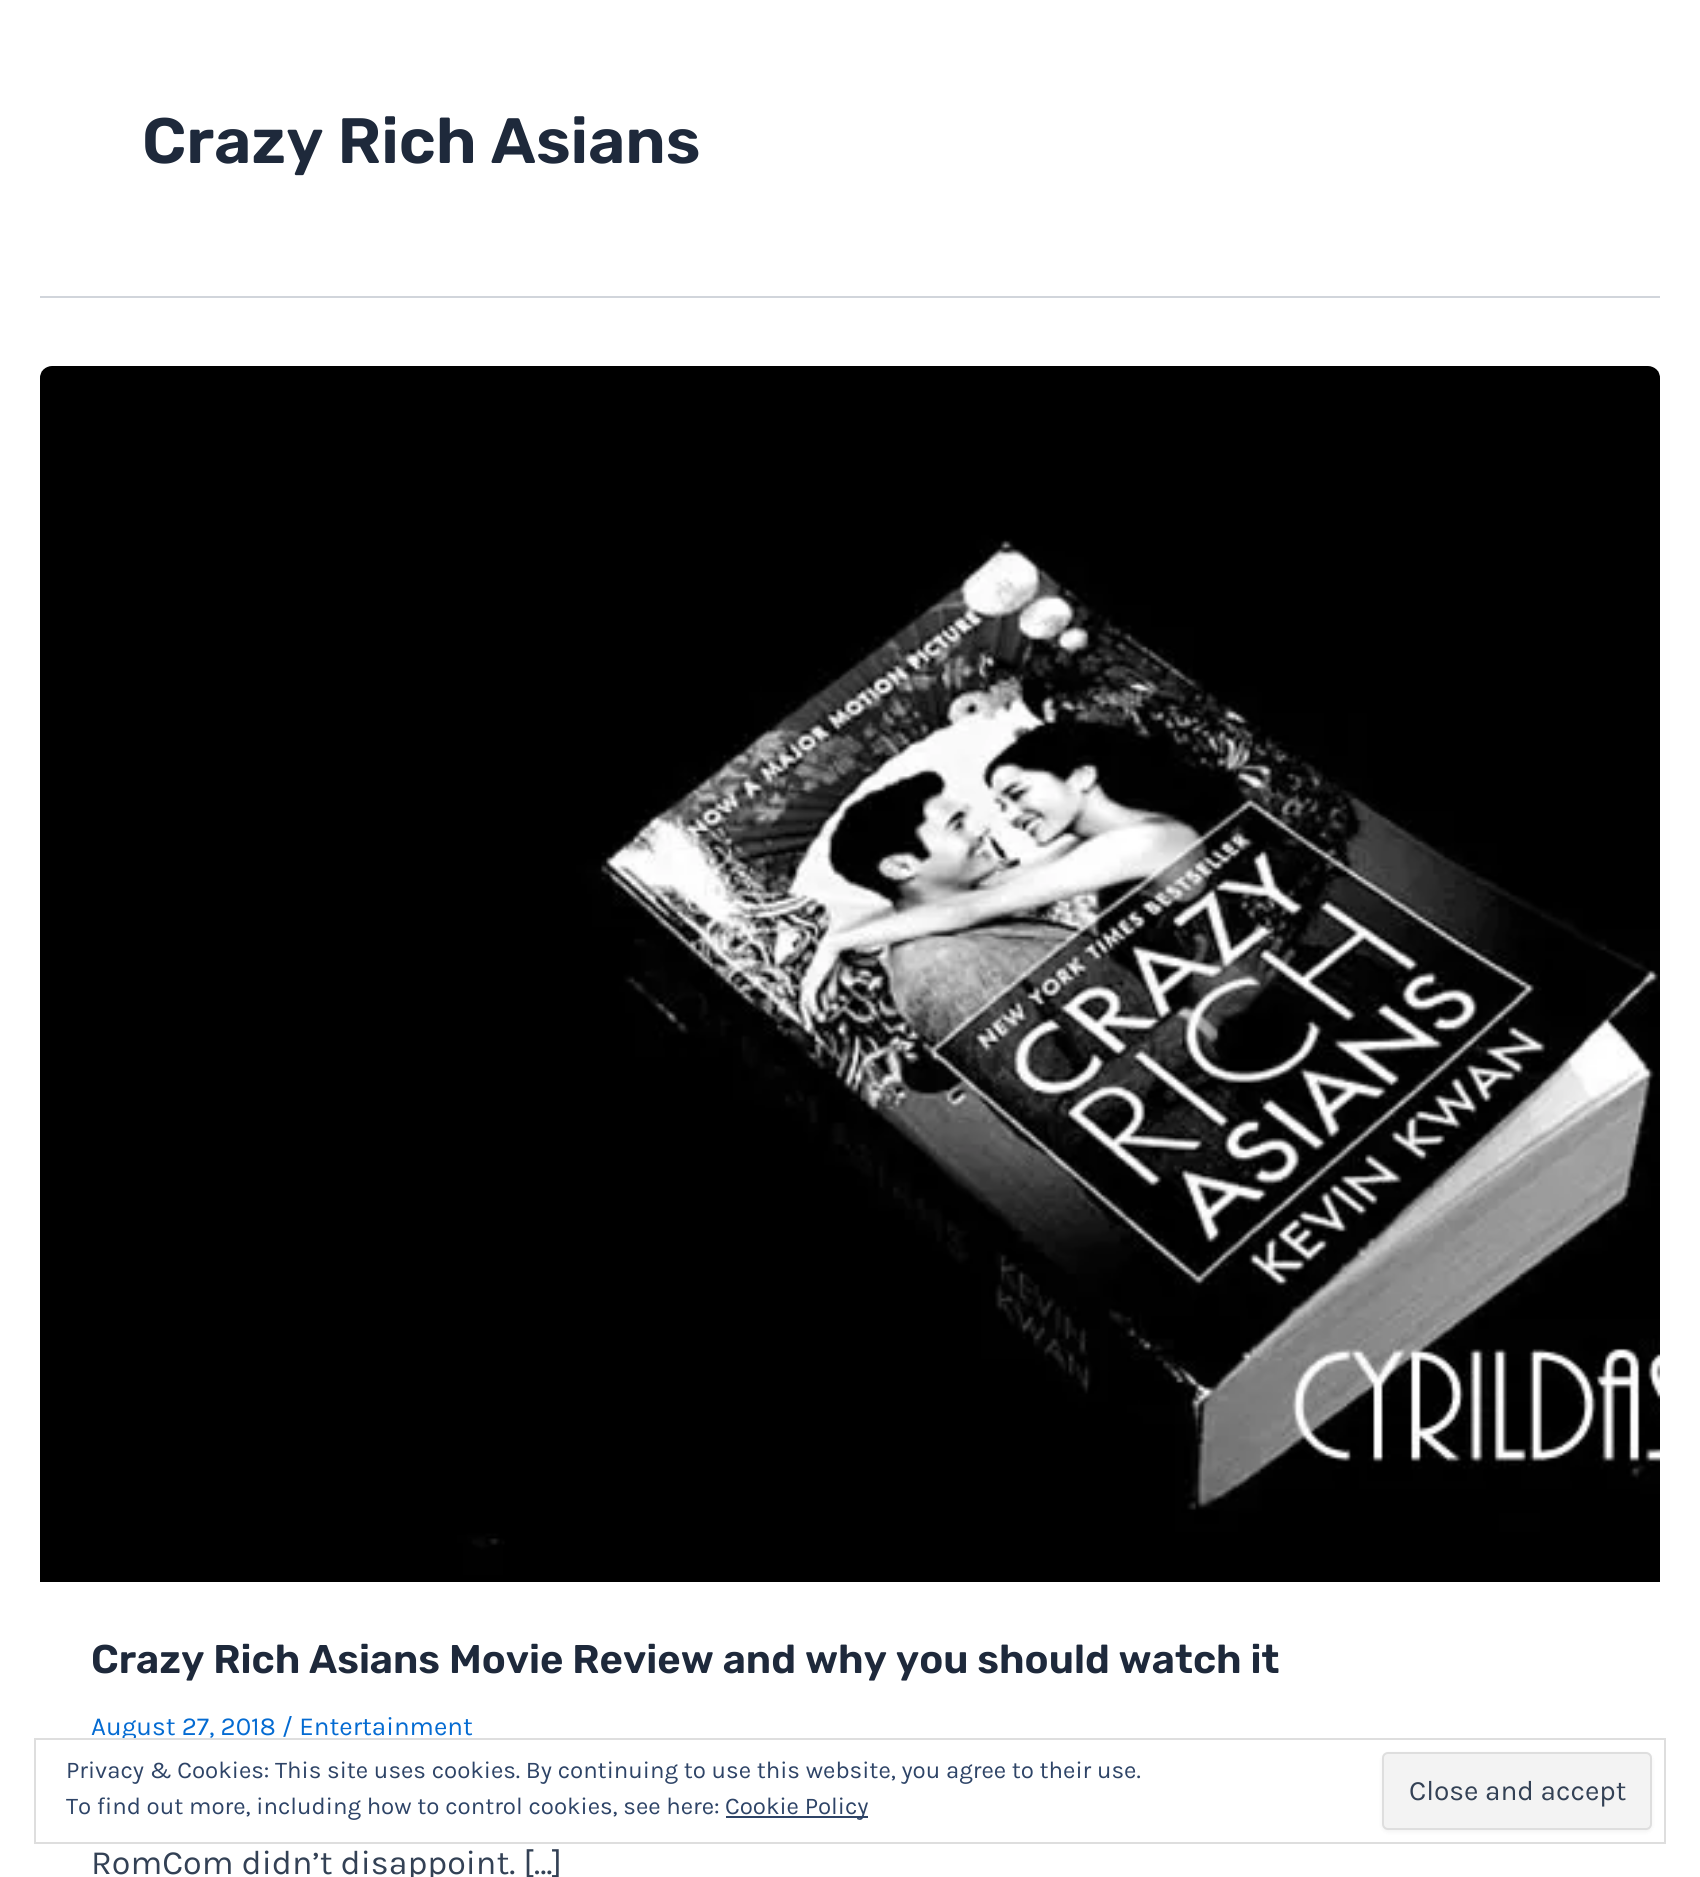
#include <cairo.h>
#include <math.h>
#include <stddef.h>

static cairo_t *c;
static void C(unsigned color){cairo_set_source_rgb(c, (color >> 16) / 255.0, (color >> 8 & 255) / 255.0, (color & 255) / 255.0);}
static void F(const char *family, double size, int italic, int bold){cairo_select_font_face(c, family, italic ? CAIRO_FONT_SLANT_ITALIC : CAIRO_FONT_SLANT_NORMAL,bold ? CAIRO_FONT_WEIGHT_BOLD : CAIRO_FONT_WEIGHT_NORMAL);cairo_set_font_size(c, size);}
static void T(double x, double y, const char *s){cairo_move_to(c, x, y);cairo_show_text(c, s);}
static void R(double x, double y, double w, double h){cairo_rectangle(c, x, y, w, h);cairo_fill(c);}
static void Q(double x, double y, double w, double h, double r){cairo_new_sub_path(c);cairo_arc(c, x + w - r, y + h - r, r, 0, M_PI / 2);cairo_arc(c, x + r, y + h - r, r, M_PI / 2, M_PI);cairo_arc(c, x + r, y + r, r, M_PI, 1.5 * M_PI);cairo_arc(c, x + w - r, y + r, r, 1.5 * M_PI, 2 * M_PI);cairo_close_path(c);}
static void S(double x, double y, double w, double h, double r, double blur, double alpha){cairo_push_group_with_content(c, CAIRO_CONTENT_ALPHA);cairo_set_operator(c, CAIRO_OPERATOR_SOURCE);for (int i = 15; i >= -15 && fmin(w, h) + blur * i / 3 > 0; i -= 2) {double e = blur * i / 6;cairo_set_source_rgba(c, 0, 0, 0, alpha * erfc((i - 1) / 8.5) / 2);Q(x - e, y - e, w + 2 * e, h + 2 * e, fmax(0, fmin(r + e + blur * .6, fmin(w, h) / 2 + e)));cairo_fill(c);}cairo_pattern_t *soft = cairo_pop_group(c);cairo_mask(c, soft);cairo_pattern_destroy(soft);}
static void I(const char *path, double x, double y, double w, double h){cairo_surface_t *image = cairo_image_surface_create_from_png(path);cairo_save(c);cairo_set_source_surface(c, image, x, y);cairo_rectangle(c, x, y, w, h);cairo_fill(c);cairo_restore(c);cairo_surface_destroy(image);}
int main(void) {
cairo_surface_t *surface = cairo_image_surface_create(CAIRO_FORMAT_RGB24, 1700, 1877);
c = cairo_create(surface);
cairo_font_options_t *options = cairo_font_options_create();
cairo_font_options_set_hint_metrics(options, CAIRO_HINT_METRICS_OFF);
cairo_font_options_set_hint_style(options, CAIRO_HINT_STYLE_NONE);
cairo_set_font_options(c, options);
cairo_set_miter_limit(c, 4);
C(0xffffff);
cairo_paint(c);
C(0xd1d5db);
R(40,296,1620,2);
F("Rubik SemiBold",64,0,0);
C(0x1e293b);
T(142,163,"Crazy Rich Asians");
I("1.png",40,366,1620,1216);
F("Rubik SemiBold",40,0,0);
T(91,1673,"Crazy Rich Asians Movie Review and why you should watch it");
F("Karla",26,0,0);
C(0x046bd2);
T(91,1735,"August 27, 2018 / Entertainment");
F("Karla",34,0,0);
C(0x334155);
T(91,1874,"RomCom didn’t disappoint. […]");
C(0xffffff);
R(124,1740,10,2);
cairo_rectangle(c,35,1739,1630,104);
C(0xdedede);
cairo_stroke(c);
F("Karla",24,0,0);
C(0x2e4467);
T(66,1778,"Privacy & Cookies: This site uses cookies. By continuing to use this website, you agree to their use.");
T(66,1814,"To find out more, including how to control cookies, see here:");
R(726,1816,142,2);
T(725,1814,"Cookie Policy");
C(0x000000);
S(1382,1754,270,78,6,2,.05);
C(0xf3f3f3);
Q(1383,1753,268,76,5);
cairo_fill_preserve(c);
C(0xdedede);
cairo_stroke(c);
F("Karla",28,0,0);
C(0x334155);
T(1409,1800,"Close and accept");
cairo_surface_write_to_png(surface, "o.png");
cairo_font_options_destroy(options);
cairo_destroy(c);
cairo_surface_destroy(surface);
return 0;
}
